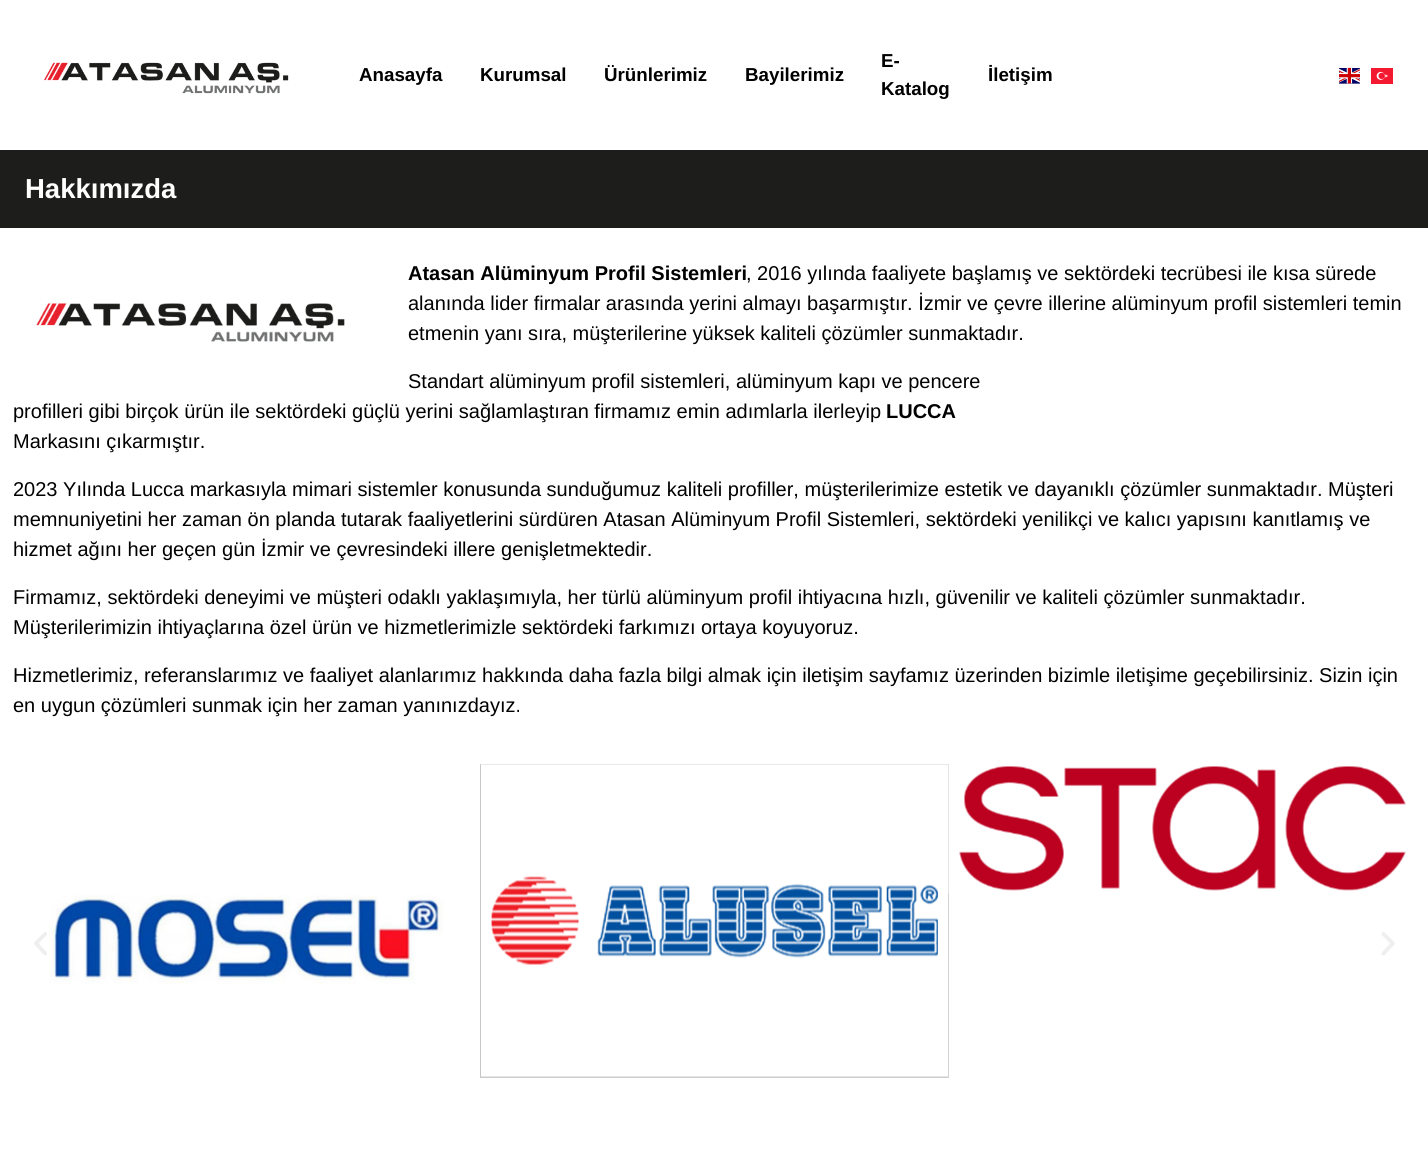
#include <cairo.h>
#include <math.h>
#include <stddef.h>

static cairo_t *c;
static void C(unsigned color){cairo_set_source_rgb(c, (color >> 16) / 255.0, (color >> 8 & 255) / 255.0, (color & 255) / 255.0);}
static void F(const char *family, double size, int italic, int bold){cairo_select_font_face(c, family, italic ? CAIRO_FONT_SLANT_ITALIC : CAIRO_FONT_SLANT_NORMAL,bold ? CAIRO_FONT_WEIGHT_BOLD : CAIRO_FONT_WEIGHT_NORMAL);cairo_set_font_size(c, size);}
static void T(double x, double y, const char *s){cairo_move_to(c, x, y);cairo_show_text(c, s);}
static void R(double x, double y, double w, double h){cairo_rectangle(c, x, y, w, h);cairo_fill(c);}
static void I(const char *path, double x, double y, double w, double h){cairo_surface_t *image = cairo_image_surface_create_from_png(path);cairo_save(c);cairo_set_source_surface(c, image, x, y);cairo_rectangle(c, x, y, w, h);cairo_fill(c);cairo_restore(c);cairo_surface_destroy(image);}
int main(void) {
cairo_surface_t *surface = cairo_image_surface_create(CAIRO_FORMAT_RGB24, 1428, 1163);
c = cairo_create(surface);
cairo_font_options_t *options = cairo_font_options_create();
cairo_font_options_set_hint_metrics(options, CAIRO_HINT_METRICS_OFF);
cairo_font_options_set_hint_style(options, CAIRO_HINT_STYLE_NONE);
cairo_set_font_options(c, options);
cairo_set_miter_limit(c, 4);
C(0xffffff);
cairo_paint(c);
I("1.png",44,62,245,32);
F("Liberation Sans",18.75,0,1);
C(0x000000);
T(359,81,"Anasayfa");
T(480,81,"Kurumsal");
T(604,81,"Ürünlerimiz");
T(745,81,"Bayilerimiz");
T(881,67,"E-");
T(881,95,"Katalog");
T(988,81,"İletişim");
I("2.png",1339,67,21,17);
I("3.png",1371,68,22,16);
C(0x1d1d1b);
R(0,150,1428,78);
F("Liberation Sans",27.5,0,1);
C(0xffffff);
T(25,198,"Hakkımızda");
F("Liberation Sans",20,0,1);
C(0x000000);
T(408,280,"Atasan Alüminyum Profil Sistemleri");
F("Liberation Sans",20,0,0);
T(746,280,", 2016 yılında faaliyete başlamış ve sektördeki tecrübesi ile kısa sürede");
I("4.png",36,303,309,39);
T(408,310,"alanında lider firmalar arasında yerini almayı başarmıştır. İzmir ve çevre illerine alüminyum profil sistemleri temin");
T(408,340,"etmenin yanı sıra, müşterilerine yüksek kaliteli çözümler sunmaktadır.");
T(408,388,"Standart alüminyum profil sistemleri, alüminyum kapı ve pencere");
T(13,418,"profilleri gibi birçok ürün ile sektördeki güçlü yerini sağlamlaştıran firmamız emin adımlarla ilerleyip");
F("Liberation Sans",20,0,1);
T(886,418,"LUCCA");
F("Liberation Sans",20,0,0);
T(13,448,"Markasını çıkarmıştır.");
T(13,496,"2023 Yılında Lucca markasıyla mimari sistemler konusunda sunduğumuz kaliteli profiller, müşterilerimize estetik ve dayanıklı çözümler sunmaktadır. Müşteri");
T(13,526,"memnuniyetini her zaman ön planda tutarak faaliyetlerini sürdüren Atasan Alüminyum Profil Sistemleri, sektördeki yenilikçi ve kalıcı yapısını kanıtlamış ve");
T(13,556,"hizmet ağını her geçen gün İzmir ve çevresindeki illere genişletmektedir.");
T(13,604,"Firmamız, sektördeki deneyimi ve müşteri odaklı yaklaşımıyla, her türlü alüminyum profil ihtiyacına hızlı, güvenilir ve kaliteli çözümler sunmaktadır.");
T(13,634,"Müşterilerimizin ihtiyaçlarına özel ürün ve hizmetlerimizle sektördeki farkımızı ortaya koyuyoruz.");
T(13,682,"Hizmetlerimiz, referanslarımız ve faaliyet alanlarımız hakkında daha fazla bilgi almak için iletişim sayfamız üzerinden bizimle iletişime geçebilirsiniz. Sizin için");
T(13,712,"en uygun çözümleri sunmak için her zaman yanınızdayız.");
I("5.png",34,932,13,24);
I("6.png",480,764,469,314);
I("7.png",948,764,458,130);
I("8.png",49,895,395,89);
I("9.png",1381,932,14,24);
cairo_surface_write_to_png(surface, "o.png");
cairo_font_options_destroy(options);
cairo_destroy(c);
cairo_surface_destroy(surface);
return 0;
}
